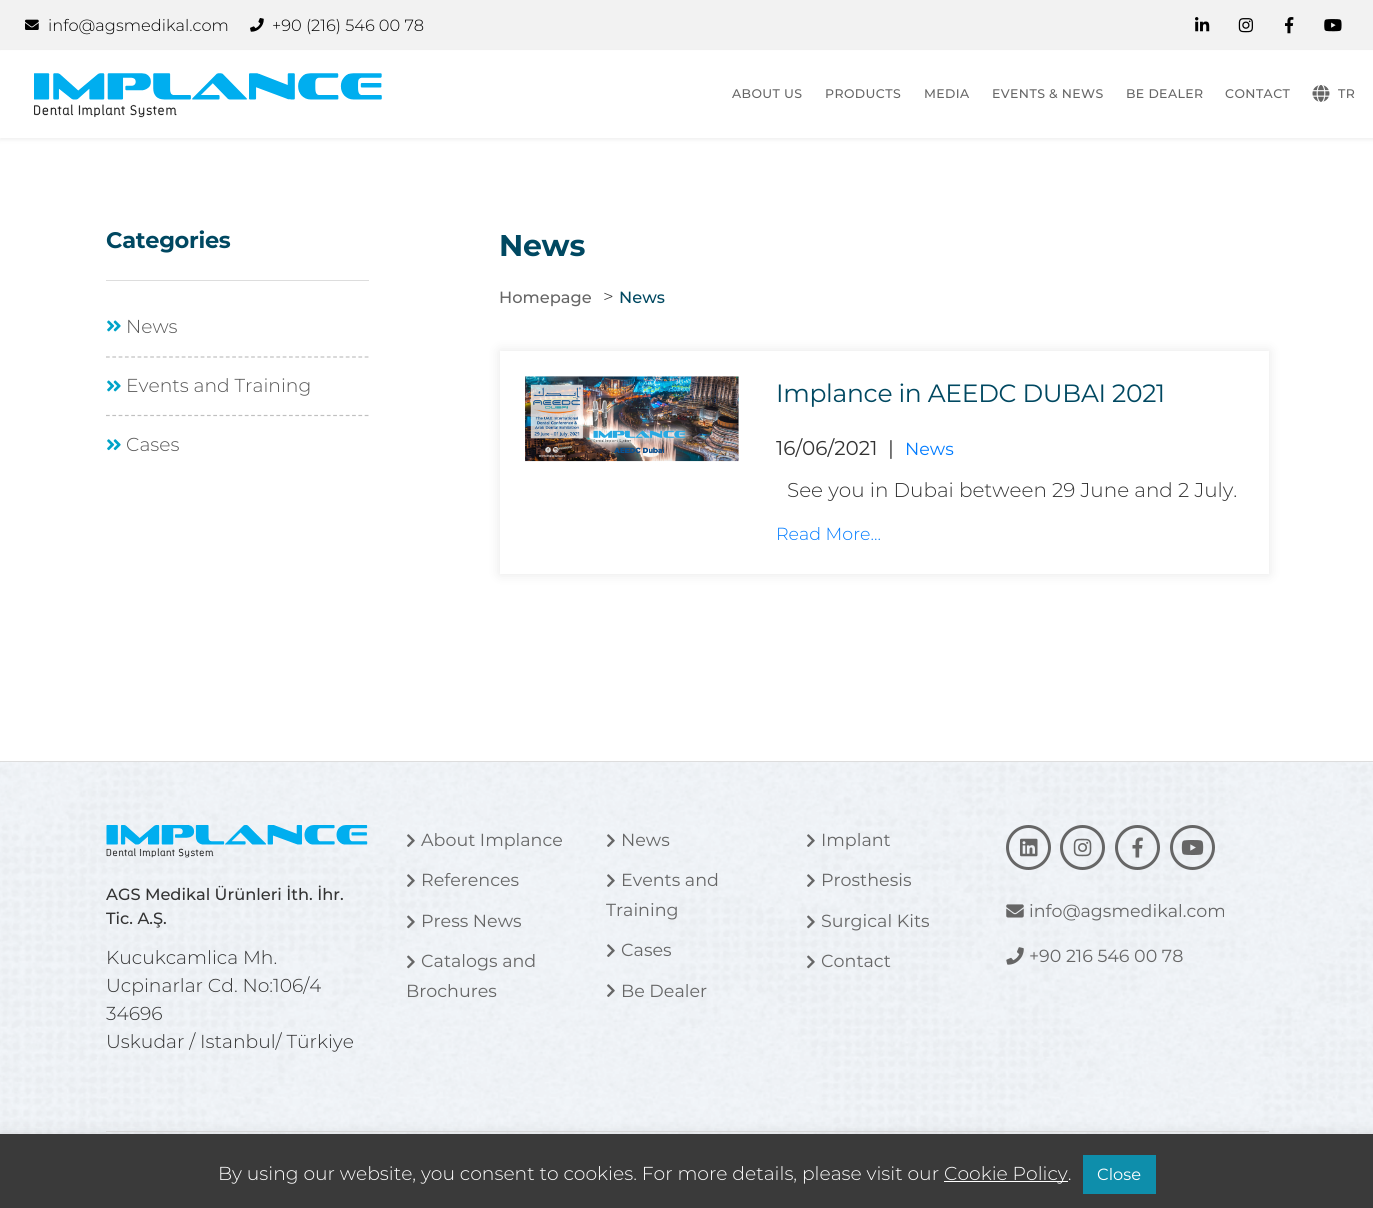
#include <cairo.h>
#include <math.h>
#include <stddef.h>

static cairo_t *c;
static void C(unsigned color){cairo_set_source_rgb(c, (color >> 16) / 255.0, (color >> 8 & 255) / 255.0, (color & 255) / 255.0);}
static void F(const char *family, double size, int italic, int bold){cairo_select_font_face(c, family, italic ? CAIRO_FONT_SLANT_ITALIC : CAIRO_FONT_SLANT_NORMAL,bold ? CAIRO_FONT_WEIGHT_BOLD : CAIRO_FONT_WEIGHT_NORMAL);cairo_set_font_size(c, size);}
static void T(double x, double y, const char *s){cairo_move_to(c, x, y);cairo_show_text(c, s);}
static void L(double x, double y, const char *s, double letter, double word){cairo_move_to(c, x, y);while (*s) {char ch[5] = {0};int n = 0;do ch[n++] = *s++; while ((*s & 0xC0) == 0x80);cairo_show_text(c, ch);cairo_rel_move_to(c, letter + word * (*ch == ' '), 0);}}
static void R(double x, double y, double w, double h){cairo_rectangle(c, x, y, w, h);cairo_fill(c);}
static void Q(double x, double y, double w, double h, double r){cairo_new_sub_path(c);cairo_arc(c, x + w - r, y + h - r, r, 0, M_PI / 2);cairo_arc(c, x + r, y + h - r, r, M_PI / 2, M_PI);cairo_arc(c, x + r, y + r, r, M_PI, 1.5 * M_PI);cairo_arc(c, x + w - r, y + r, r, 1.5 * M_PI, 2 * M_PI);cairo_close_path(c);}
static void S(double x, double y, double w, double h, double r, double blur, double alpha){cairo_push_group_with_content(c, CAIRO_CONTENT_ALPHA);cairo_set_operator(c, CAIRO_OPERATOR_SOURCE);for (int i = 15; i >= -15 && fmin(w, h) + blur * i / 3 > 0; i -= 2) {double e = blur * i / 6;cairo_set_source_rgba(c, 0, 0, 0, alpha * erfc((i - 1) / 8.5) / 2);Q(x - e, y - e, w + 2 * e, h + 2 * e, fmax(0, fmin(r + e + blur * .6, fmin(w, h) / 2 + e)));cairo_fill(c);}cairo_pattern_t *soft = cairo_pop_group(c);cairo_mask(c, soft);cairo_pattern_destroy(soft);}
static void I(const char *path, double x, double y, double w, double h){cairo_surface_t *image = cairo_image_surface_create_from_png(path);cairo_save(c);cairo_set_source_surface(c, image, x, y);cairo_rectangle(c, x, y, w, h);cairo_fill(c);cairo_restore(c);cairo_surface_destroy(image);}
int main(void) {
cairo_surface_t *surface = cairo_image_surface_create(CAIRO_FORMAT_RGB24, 1373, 1208);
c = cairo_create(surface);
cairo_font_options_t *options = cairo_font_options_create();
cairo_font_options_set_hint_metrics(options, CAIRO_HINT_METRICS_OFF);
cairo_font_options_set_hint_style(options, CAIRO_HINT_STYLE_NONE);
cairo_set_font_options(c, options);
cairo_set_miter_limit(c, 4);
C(0xffffff);
cairo_paint(c);
C(0xf2f2f2);
R(0,0,1373,50);
I("1.png",25,19,14,11);
F("Montserrat Light",16.25,0,0);
C(0x000000);
T(48,31,"info@agsmedikal.com");
I("2.png",250,18,14,14);
T(272,31,"+90 (216) 546 00 78");
I("3.png",1195,17,15,15);
I("4.png",1238,18,15,15);
I("5.png",1285,17,9,17);
I("6.png",1324,19,18,13);
C(0x606060);
S(0,53,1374,87,0,2,.1);
C(0xffffff);
R(0,51,1373,87);
I("7.png",34,73,348,45);
F("Montserrat Medium",12.5,0,0);
C(0x666666);
L(732,98,"ABOUT US",.4,0);
L(825,98,"PRODUCTS",.4,0);
L(924,98,"MEDIA",.4,0);
L(992,98,"EVENTS & NEWS",.4,0);
L(1126,98,"BE DEALER",.4,0);
L(1225,98,"CONTACT",.4,0);
I("8.png",1312,85,18,17);
L(1338,98,"TR",.4,0);
C(0xdddddd);
R(106,280,263,1);
F("Montserrat",22.5,0,1);
C(0x004861);
L(106,248,"Categories",-.3,0);
cairo_new_path(c);
cairo_move_to(c,106,357);
cairo_line_to(c,369,357);
C(0xc0c0c0);
cairo_set_line_width(c,1.2);
cairo_set_dash(c,(double[]){3.75,2.56},2,0);
cairo_stroke(c);
I("9.png",107,320,14,12);
F("Montserrat Light",18.75,0,0);
C(0x555555);
T(126,333,"News");
cairo_new_path(c);
cairo_move_to(c,106,415.5);
cairo_line_to(c,369,415.5);
C(0xc0c0c0);
cairo_stroke(c);
I("9.png",107,380,14,12);
C(0x555555);
T(126,392,"Events and Training");
I("10.png",107,439,14,12);
T(126,451,"Cases");
F("Montserrat",30,0,1);
C(0x004861);
L(499,256,"News",-.3,0);
F("Montserrat Medium",16.25,0,0);
C(0x666666);
T(499,303,"Homepage");
F("Montserrat Light",18.75,0,0);
C(0x333333);
T(603,303,">");
F("Montserrat Medium",16.25,0,0);
C(0x004861);
T(619,303,"News");
C(0x000000);
S(500,351,769,223,0,6,.1);
C(0xffffff);
R(500,351,769,223);
I("11.png",525,376,214,86);
F("Montserrat",25,0,0);
C(0x004861);
L(776,402,"Implance in AEEDC DUBAI 2021",-.3,0);
F("Montserrat",20,0,0);
C(0x333333);
T(776,455,"16/06/2021  |");
F("Montserrat",17.5,0,0);
C(0x007bff);
T(905,455,"News");
F("Montserrat Light",20,0,0);
C(0x333333);
T(787,497,"See you in Dubai between 29 June and 2 July.");
F("Montserrat Light",17.5,0,0);
C(0x007bff);
T(776,540,"Read More...");
I("12.png",0,762,1373,372);
C(0xdddddd);
R(0,761,1373,1);
I("13.png",106,825,262,33);
F("Montserrat Medium",16.25,0,0);
C(0x333333);
T(106,900,"AGS Medikal Ürünleri İth. İhr.");
T(106,924,"Tic. A.Ş.");
F("Montserrat Light",18.75,0,0);
T(106,964,"Kucukcamlica Mh.");
T(106,992,"Ucpinarlar Cd. No:106/4");
T(106,1020,"34696");
T(106,1048,"Uskudar / Istanbul/ Türkiye");
I("14.png",407,834,8,13);
F("Montserrat",17.5,0,0);
C(0x666666);
T(421,846,"About Implance");
I("15.png",407,874,8,13);
T(421,886,"References");
I("16.png",407,915,8,14);
T(421,927,"Press News");
I("17.png",407,955,8,14);
T(421,967,"Catalogs and");
T(406,997,"Brochures");
I("18.png",607,834,8,13);
T(621,846,"News");
I("19.png",607,874,8,13);
T(621,886,"Events and");
T(606,916,"Training");
I("20.png",607,944,8,13);
T(621,956,"Cases");
I("21.png",607,984,8,13);
T(621,997,"Be Dealer");
I("22.png",807,834,8,13);
T(821,846,"Implant");
I("23.png",807,874,8,13);
T(821,886,"Prosthesis");
I("24.png",807,915,8,14);
T(821,927,"Surgical Kits");
I("25.png",807,955,8,14);
T(821,967,"Contact");
cairo_new_path(c);
cairo_arc(c,1028.5,847.5,21,0,2 * M_PI);
cairo_set_line_width(c,3);
cairo_set_dash(c,NULL,0,0);
cairo_stroke(c);
I("26.png",1020,838,18,19);
cairo_arc(c,1082.5,847.5,21,0,2 * M_PI);
cairo_stroke(c);
I("27.png",1073,838,19,19);
cairo_arc(c,1137.5,847.5,21,0,2 * M_PI);
cairo_stroke(c);
I("28.png",1132,837,11,21);
cairo_arc(c,1192.5,847.5,21,0,2 * M_PI);
cairo_stroke(c);
I("29.png",1181,840,23,15);
I("30.png",1006,904,18,14);
T(1029,917,"info@agsmedikal.com");
I("31.png",1006,947,18,18);
T(1029,962,"+90 216 546 00 78");
C(0xdddddd);
R(106,1131,1163,1);
C(0xacabab);
S(0,1133,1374,75,0,6,.3);
C(0x3a3a3a);
R(0,1134,1373,74);
F("Montserrat Light",18.75,0,0);
C(0xffffff);
T(218,1180,"By using our website, you consent to cookies. For more details, please visit our");
R(944,1181,124,1);
T(944,1180,"Cookie Policy.");
C(0x0e8eab);
R(1083,1155,73,39);
F("Montserrat",16.25,0,0);
C(0xffffff);
T(1097,1180,"Close");
cairo_surface_write_to_png(surface, "o.png");
cairo_font_options_destroy(options);
cairo_destroy(c);
cairo_surface_destroy(surface);
return 0;
}
